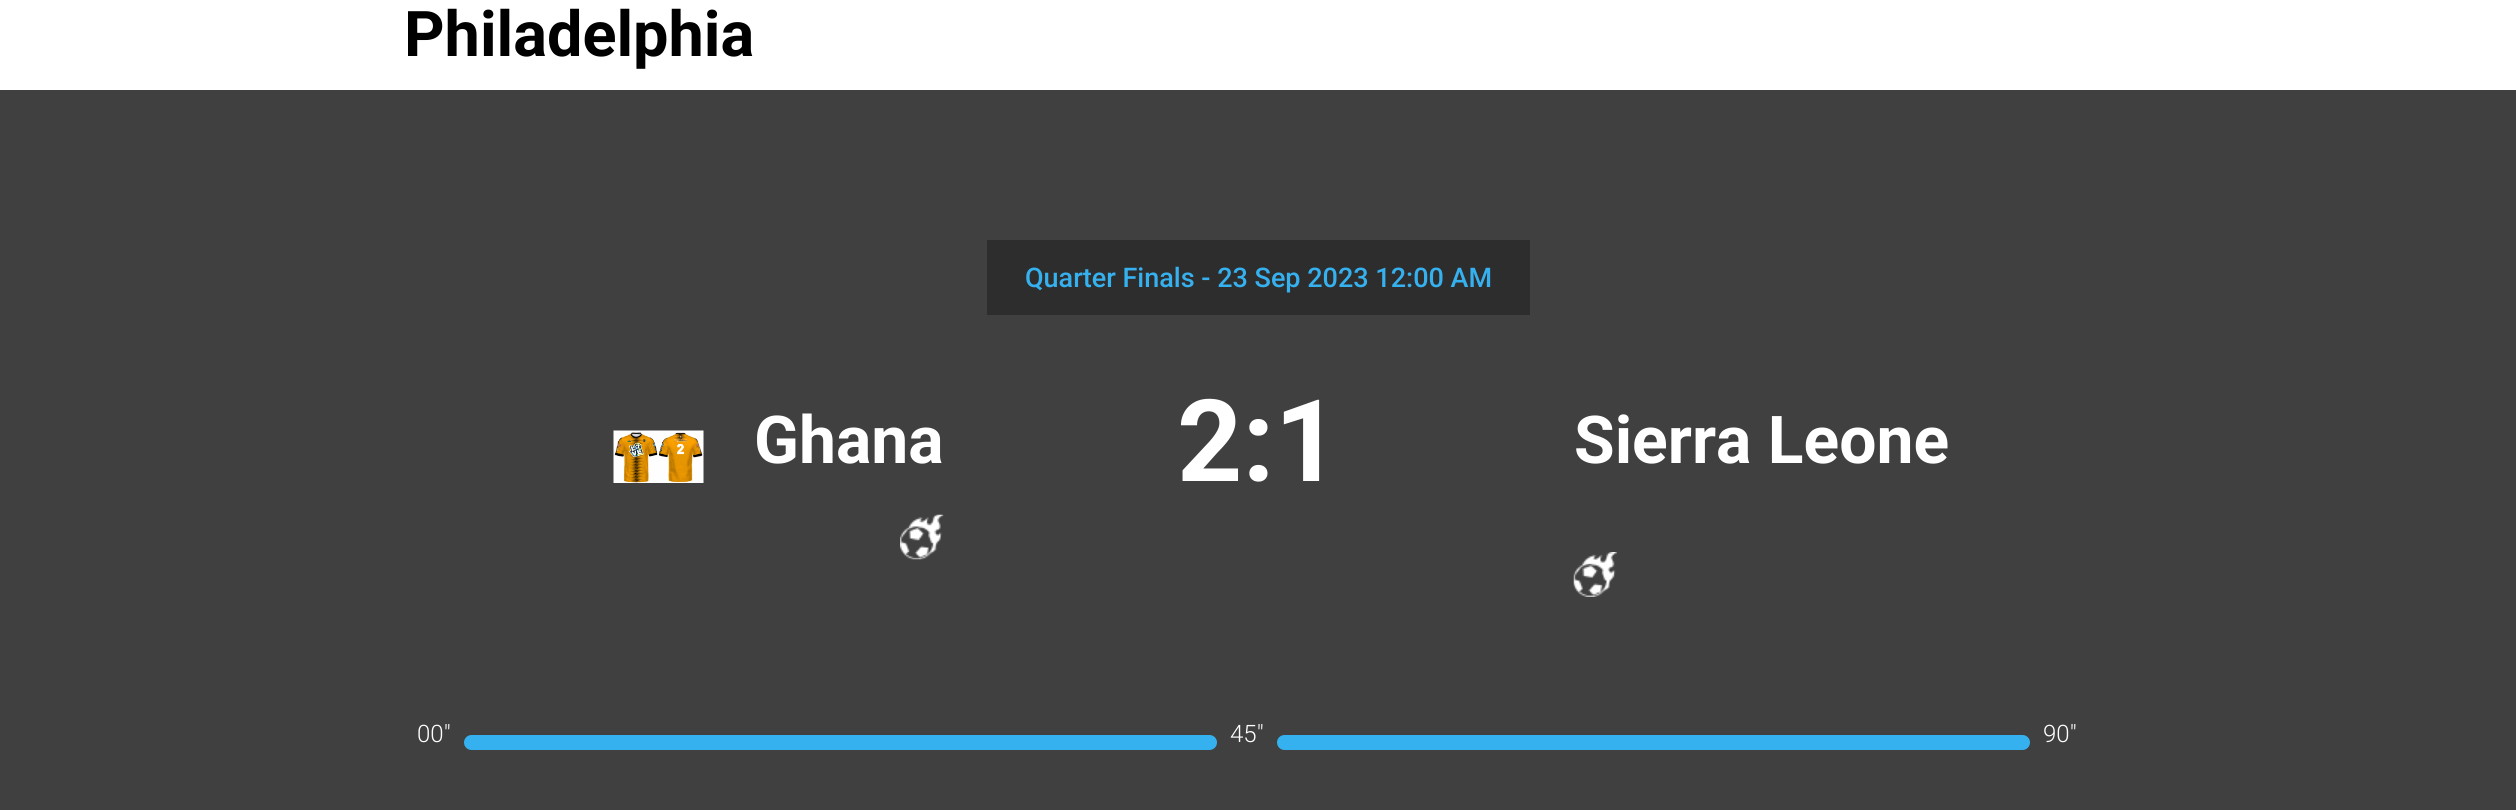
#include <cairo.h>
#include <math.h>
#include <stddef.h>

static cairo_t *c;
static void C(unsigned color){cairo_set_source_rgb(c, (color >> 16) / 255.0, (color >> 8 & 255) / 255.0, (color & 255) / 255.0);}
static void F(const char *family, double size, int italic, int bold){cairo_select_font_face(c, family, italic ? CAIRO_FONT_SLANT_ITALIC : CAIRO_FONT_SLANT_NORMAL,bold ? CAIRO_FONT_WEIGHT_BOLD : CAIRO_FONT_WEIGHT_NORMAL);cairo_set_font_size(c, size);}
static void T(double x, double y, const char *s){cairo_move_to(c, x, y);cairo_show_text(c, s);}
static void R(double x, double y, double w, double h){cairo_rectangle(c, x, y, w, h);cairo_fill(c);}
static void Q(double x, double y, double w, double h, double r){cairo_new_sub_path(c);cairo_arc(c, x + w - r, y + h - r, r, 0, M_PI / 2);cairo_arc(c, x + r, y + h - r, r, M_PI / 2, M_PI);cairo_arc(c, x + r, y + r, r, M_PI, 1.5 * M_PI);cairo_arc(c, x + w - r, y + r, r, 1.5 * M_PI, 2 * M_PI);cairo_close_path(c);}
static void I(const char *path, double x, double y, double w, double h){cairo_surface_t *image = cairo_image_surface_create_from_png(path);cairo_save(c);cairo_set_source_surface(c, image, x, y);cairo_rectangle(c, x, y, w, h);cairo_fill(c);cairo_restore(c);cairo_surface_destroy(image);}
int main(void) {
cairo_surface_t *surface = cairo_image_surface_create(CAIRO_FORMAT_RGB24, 2516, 810);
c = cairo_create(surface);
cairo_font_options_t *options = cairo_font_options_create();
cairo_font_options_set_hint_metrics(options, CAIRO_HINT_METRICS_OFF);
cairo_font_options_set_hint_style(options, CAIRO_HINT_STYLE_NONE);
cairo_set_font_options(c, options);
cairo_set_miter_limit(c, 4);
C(0xffffff);
cairo_paint(c);
F("Roboto",63,0,1);
C(0x000000);
T(404,56,"Philadelphia");
cairo_set_source_rgba(c,0,0,0,0.75);
R(0,90,2516,720);
C(0x2d2d2d);
R(987,240,543,75);
F("Roboto Medium",27,0,0);
C(0x36b1f0);
T(1025,287,"Quarter Finals - 23 Sep 2023 12:00 AM");
I("1.png",613,430,91,53);
F("Roboto",66,0,1);
C(0xffffff);
T(754,463,"Ghana");
I("2.png",900,514,44,46);
F("Roboto",114,0,1);
T(1177,481,"2:1");
F("Roboto",66,0,1);
T(1574,463,"Sierra Leone");
I("3.png",1573,552,44,45);
F("Roboto Light",24,0,0);
T(417,742,"00\"");
C(0x36b1f0);
Q(464,735,753,15,7.5);
cairo_fill(c);
C(0xffffff);
T(1230,742,"45\"");
C(0x36b1f0);
Q(1277,735,753,15,7.5);
cairo_fill(c);
C(0xffffff);
T(2043,742,"90\"");
cairo_surface_write_to_png(surface, "o.png");
cairo_font_options_destroy(options);
cairo_destroy(c);
cairo_surface_destroy(surface);
return 0;
}
